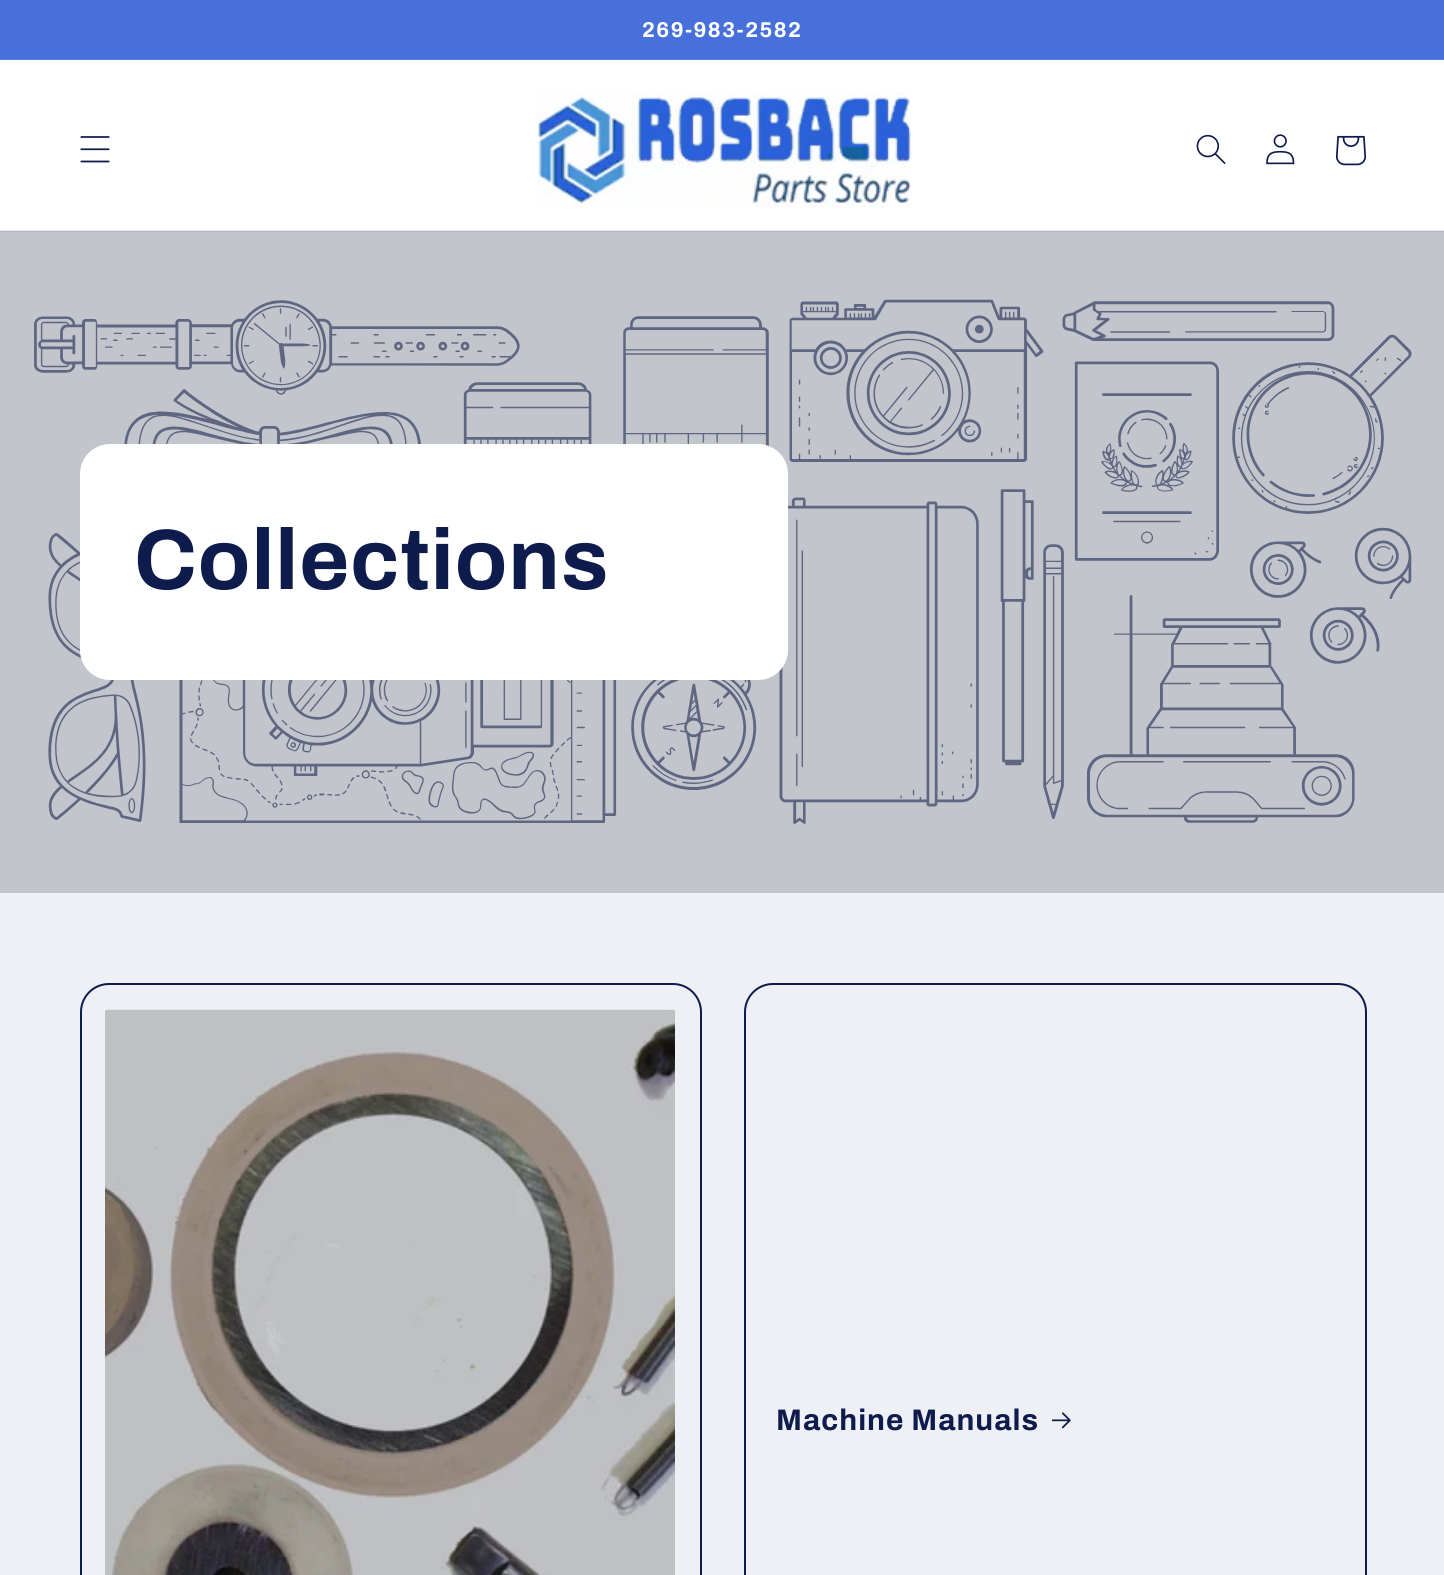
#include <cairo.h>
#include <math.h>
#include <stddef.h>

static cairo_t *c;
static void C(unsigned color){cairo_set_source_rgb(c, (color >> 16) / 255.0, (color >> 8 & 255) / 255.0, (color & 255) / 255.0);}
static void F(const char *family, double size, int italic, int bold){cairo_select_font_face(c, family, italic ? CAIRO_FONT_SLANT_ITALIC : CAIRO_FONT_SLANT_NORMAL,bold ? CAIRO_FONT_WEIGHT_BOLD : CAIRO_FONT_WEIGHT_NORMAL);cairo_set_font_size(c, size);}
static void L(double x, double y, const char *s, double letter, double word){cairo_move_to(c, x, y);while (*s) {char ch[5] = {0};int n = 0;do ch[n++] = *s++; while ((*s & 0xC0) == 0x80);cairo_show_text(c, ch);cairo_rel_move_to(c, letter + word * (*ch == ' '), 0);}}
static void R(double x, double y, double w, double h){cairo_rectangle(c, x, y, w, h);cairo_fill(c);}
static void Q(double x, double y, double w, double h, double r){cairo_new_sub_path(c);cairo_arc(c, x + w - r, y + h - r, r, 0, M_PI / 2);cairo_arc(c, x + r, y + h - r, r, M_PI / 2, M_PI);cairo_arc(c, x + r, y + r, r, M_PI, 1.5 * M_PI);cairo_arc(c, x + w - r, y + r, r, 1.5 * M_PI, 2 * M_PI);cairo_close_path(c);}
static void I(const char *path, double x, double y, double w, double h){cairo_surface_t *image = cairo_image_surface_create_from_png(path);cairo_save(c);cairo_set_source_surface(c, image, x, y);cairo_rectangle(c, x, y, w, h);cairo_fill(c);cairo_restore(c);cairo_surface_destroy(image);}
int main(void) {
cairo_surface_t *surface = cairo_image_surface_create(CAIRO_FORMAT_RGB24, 1444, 1575);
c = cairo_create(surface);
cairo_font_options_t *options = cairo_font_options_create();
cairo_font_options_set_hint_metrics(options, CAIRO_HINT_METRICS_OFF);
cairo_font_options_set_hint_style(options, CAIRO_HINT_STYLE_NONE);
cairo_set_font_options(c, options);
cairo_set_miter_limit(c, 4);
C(0xeff0f5);
cairo_paint(c);
C(0x4770db);
R(0,0,1444,59);
C(0x567bde);
R(0,59,1444,1);
F("Archivo",21.5,0,1);
C(0xffffff);
L(642,37,"269-983-2582",1.5,0);
R(0,60,1444,170);
C(0xecedf1);
R(0,230,1444,1);
I("1.png",80,136,30,27);
I("2.png",535,92,376,116);
I("3.png",1196,134,30,30);
I("4.png",1266,134,29,31);
I("5.png",1336,135,30,31);
C(0xc3c5cc);
R(0,232,1444,661);
C(0xb5b7c2);
R(0,231,1444,1);
I("6.png",34,299,1378,525);
C(0xffffff);
Q(80,444,708,236,30);
cairo_fill(c);
F("Archivo",85.75,0,1);
C(0x0e1b4d);
L(134,589,"Collections",1,0);
Q(81,984,620,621,28);
cairo_stroke(c);
I("7.png",105,1009,570,566);
Q(745,984,621,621,28);
cairo_stroke(c);
F("Archivo",29.75,0,1);
L(776,1430,"Machine Manuals",1,0);
I("8.png",1052,1412,19,17);
cairo_surface_write_to_png(surface, "o.png");
cairo_font_options_destroy(options);
cairo_destroy(c);
cairo_surface_destroy(surface);
return 0;
}
